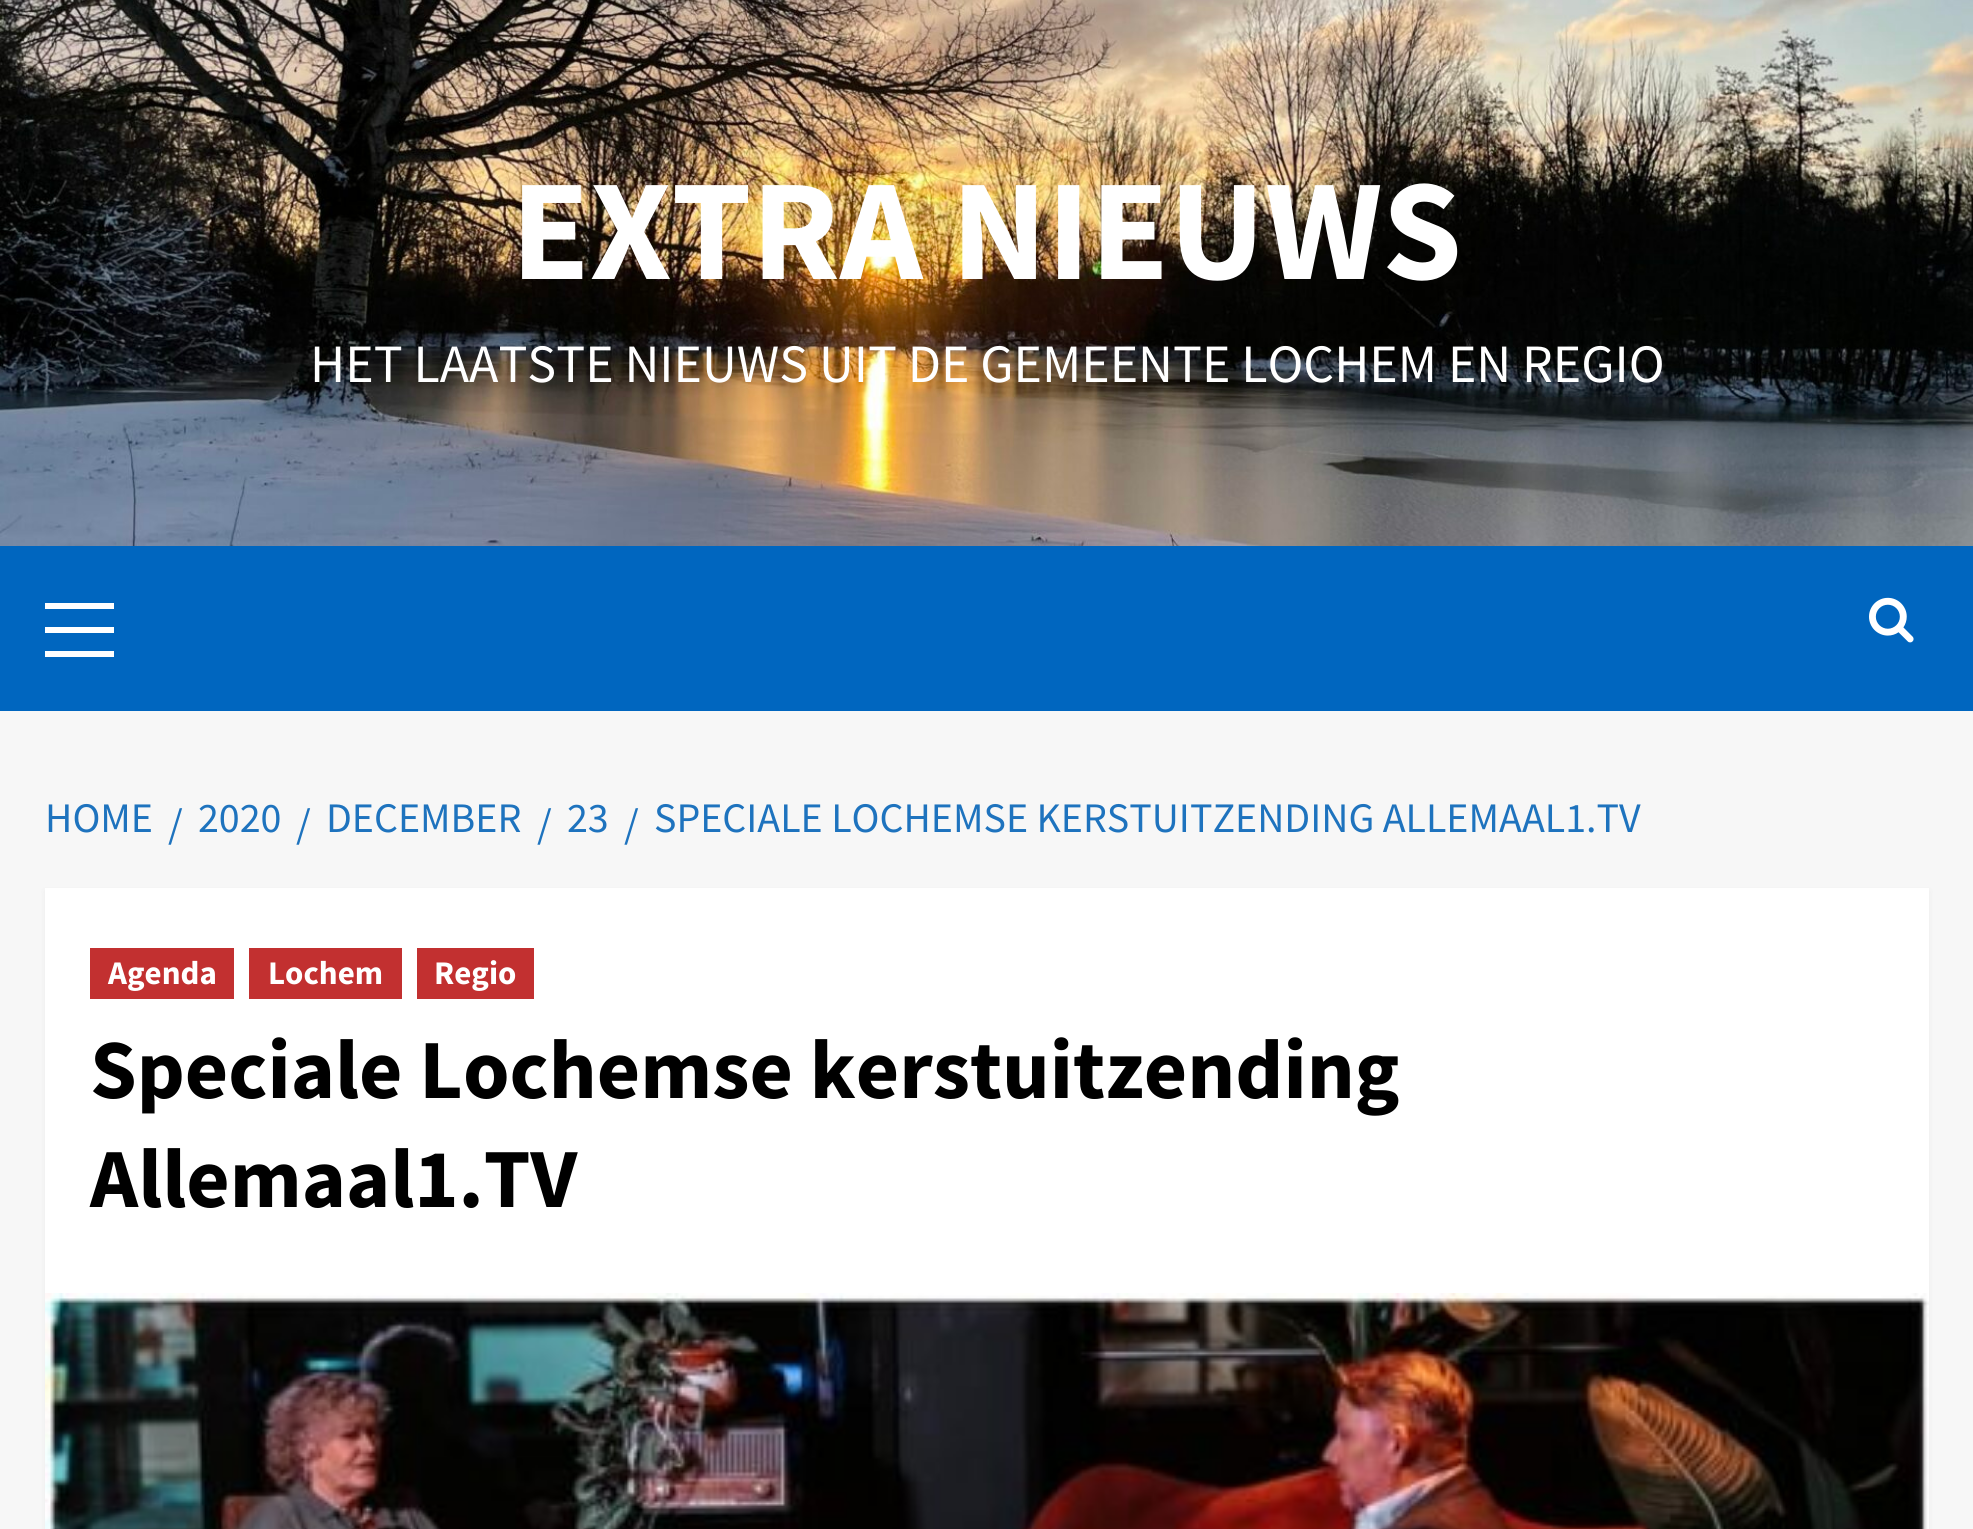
#include <cairo.h>
#include <math.h>
#include <stddef.h>

static cairo_t *c;
static void C(unsigned color){cairo_set_source_rgb(c, (color >> 16) / 255.0, (color >> 8 & 255) / 255.0, (color & 255) / 255.0);}
static void F(const char *family, double size, int italic, int bold){cairo_select_font_face(c, family, italic ? CAIRO_FONT_SLANT_ITALIC : CAIRO_FONT_SLANT_NORMAL,bold ? CAIRO_FONT_WEIGHT_BOLD : CAIRO_FONT_WEIGHT_NORMAL);cairo_set_font_size(c, size);}
static void T(double x, double y, const char *s){cairo_move_to(c, x, y);cairo_show_text(c, s);}
static void R(double x, double y, double w, double h){cairo_rectangle(c, x, y, w, h);cairo_fill(c);}
static void Q(double x, double y, double w, double h, double r){cairo_new_sub_path(c);cairo_arc(c, x + w - r, y + h - r, r, 0, M_PI / 2);cairo_arc(c, x + r, y + h - r, r, M_PI / 2, M_PI);cairo_arc(c, x + r, y + r, r, M_PI, 1.5 * M_PI);cairo_arc(c, x + w - r, y + r, r, 1.5 * M_PI, 2 * M_PI);cairo_close_path(c);}
static void S(double x, double y, double w, double h, double r, double blur, double alpha){cairo_push_group_with_content(c, CAIRO_CONTENT_ALPHA);cairo_set_operator(c, CAIRO_OPERATOR_SOURCE);for (int i = 15; i >= -15 && fmin(w, h) + blur * i / 3 > 0; i -= 2) {double e = blur * i / 6;cairo_set_source_rgba(c, 0, 0, 0, alpha * erfc((i - 1) / 8.5) / 2);Q(x - e, y - e, w + 2 * e, h + 2 * e, fmax(0, fmin(r + e + blur * .6, fmin(w, h) / 2 + e)));cairo_fill(c);}cairo_pattern_t *soft = cairo_pop_group(c);cairo_mask(c, soft);cairo_pattern_destroy(soft);}
static void I(const char *path, double x, double y, double w, double h){cairo_surface_t *image = cairo_image_surface_create_from_png(path);cairo_save(c);cairo_set_source_surface(c, image, x, y);cairo_rectangle(c, x, y, w, h);cairo_fill(c);cairo_restore(c);cairo_surface_destroy(image);}
int main(void) {
cairo_surface_t *surface = cairo_image_surface_create(CAIRO_FORMAT_RGB24, 1973, 1529);
c = cairo_create(surface);
cairo_font_options_t *options = cairo_font_options_create();
cairo_font_options_set_hint_metrics(options, CAIRO_HINT_METRICS_OFF);
cairo_font_options_set_hint_style(options, CAIRO_HINT_STYLE_NONE);
cairo_set_font_options(c, options);
cairo_set_miter_limit(c, 4);
C(0xf7f7f7);
cairo_paint(c);
I("1.png",0,0,1973,546);
F("Source Sans Pro",144,0,1);
C(0xffffff);
T(511,279,"EXTRA NIEUWS");
F("Source Sans Pro",54,0,0);
T(310,382,"HET LAATSTE NIEUWS UIT DE GEMEENTE LOCHEM EN REGIO");
C(0x0066bf);
R(0,546,1973,165);
C(0xffffff);
R(45,627,69,6);
R(45,603,69,6);
R(45,651,69,6);
I("2.png",1869,597,45,46);
F("Source Sans Pro",42,0,0);
C(0x1e73be);
T(45,832,"HOME");
T(168,838,"/");
T(198,832,"2020");
T(296,838,"/");
T(326,832,"DECEMBER");
T(537,838,"/");
T(567,832,"23");
T(624,838,"/");
T(654,832,"SPECIALE LOCHEMSE KERSTUITZENDING ALLEMAAL1.TV");
C(0x000000);
S(45,891,1884,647,0,3,.05);
C(0xffffff);
R(45,888,1884,405);
C(0xc23030);
R(90,948,144,51);
F("Source Sans Pro",33,0,1);
C(0xffffff);
T(108,984,"Agenda");
C(0xc23030);
R(249,948,153,51);
C(0xffffff);
T(268,984,"Lochem");
C(0xc23030);
R(417,948,117,51);
C(0xffffff);
T(434,984,"Regio");
F("Source Sans Pro",84,0,1);
C(0x000000);
T(90,1098,"Speciale Lochemse kerstuitzending");
T(90,1207,"Allemaal1.TV");
I("3.png",45,1293,1884,236);
cairo_surface_write_to_png(surface, "o.png");
cairo_font_options_destroy(options);
cairo_destroy(c);
cairo_surface_destroy(surface);
return 0;
}
